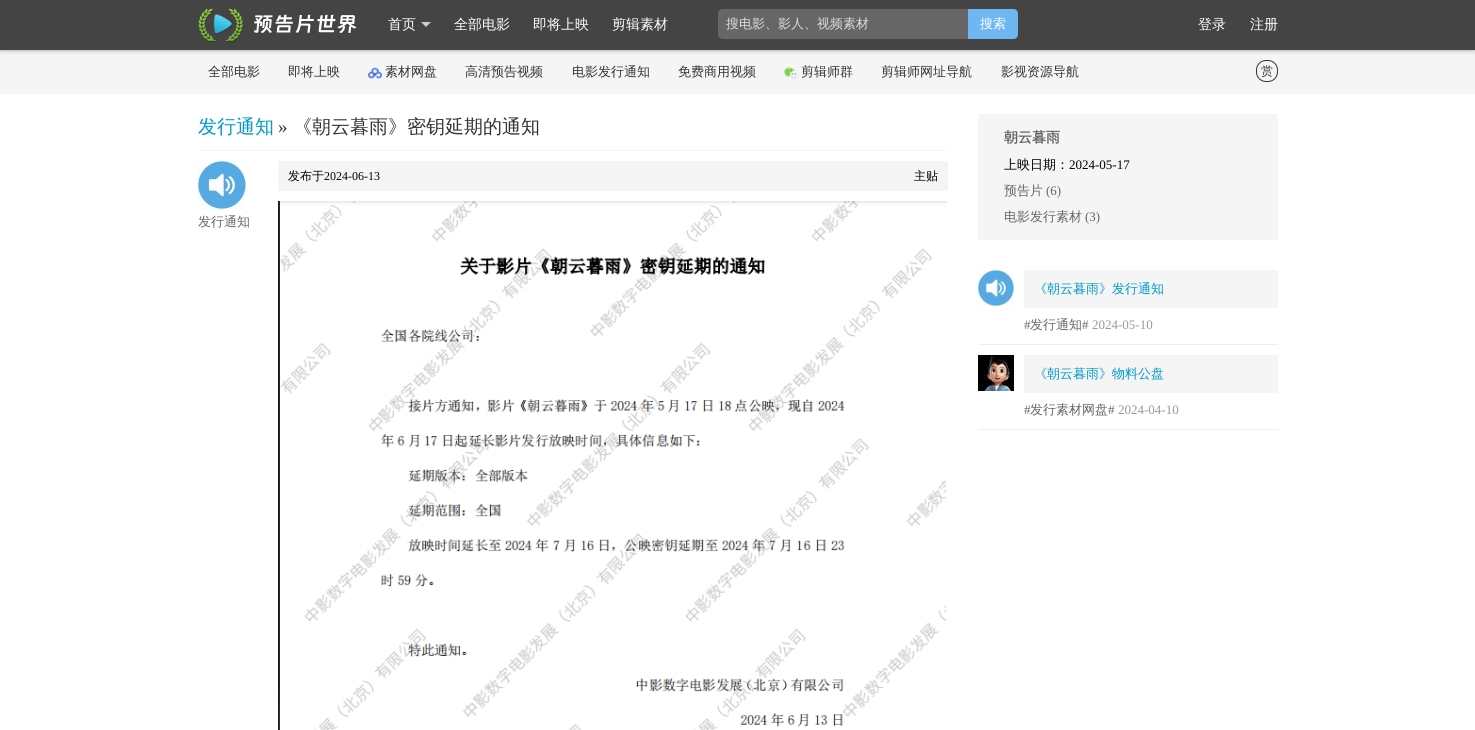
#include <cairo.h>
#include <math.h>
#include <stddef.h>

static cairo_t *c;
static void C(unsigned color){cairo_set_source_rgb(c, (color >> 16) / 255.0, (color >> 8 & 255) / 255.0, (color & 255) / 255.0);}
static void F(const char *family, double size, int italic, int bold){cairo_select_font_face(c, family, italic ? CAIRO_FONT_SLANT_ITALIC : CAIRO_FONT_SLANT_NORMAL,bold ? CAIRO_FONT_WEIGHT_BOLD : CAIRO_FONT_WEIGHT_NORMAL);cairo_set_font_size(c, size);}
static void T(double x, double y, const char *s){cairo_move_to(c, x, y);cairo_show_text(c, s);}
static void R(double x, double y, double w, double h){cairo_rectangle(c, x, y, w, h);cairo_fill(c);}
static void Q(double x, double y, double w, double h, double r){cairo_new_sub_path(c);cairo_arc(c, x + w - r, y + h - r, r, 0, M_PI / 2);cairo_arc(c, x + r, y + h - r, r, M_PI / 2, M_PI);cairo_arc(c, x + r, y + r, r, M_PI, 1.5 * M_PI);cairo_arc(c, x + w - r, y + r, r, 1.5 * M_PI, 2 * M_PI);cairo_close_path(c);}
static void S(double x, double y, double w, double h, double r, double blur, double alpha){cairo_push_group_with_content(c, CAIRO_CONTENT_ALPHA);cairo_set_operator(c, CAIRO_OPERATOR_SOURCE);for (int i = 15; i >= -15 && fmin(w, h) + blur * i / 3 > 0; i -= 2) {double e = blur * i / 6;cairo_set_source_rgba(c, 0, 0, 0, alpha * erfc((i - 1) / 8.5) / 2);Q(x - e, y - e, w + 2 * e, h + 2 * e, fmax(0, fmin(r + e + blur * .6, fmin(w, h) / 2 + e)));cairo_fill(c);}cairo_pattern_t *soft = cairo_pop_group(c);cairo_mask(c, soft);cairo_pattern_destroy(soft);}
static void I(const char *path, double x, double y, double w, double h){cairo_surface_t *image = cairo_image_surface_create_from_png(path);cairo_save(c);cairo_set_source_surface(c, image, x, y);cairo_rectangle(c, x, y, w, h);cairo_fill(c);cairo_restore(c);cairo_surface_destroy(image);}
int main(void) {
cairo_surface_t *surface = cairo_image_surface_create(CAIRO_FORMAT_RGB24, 1475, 730);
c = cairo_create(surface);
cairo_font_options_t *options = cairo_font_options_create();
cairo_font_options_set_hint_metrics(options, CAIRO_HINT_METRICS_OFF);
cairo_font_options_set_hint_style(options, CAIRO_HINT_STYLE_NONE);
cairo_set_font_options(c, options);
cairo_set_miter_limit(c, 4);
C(0xffffff);
cairo_paint(c);
C(0xf5f5f5);
R(0,50,1475,44);
C(0x999999);
S(0,0,1475,50,0,2.5,1);
C(0x444444);
R(0,0,1475,50);
I("1.png",198,8,159,34);
F("WenQuanYi Zen Hei Medium",14,0,0);
C(0xffffff);
T(388,29,"首页");
C(0xcccccc);
cairo_new_path(c);
cairo_move_to(c,421,22);
cairo_line_to(c,431,22);
cairo_line_to(c,426,27);
cairo_close_path(c);
cairo_fill(c);
C(0xffffff);
T(454,29,"全部电影");
T(533,29,"即将上映");
T(612,29,"剪辑素材");
C(0x666666);
Q(718,9,300,30,5);
cairo_fill(c);
F("WenQuanYi Zen Hei Medium",13,0,0);
C(0xdddddd);
T(726,28,"搜电影、影人、视频素材");
C(0x6eb7f2);
cairo_new_path(c);
cairo_move_to(c,968,9);
cairo_line_to(c,1013,9);
cairo_curve_to(c,1016,9,1018,11,1018,14);
cairo_line_to(c,1018,34);
cairo_curve_to(c,1018,37,1016,39,1013,39);
cairo_line_to(c,968,39);
cairo_close_path(c);
cairo_fill(c);
C(0xffffff);
T(980,28,"搜索");
F("WenQuanYi Zen Hei Medium",14,0,0);
T(1198,29,"登录");
T(1250,29,"注册");
F("WenQuanYi Zen Hei Medium",13,0,0);
C(0x333333);
T(208,76,"全部电影");
T(288,76,"即将上映");
I("2.png",368,67,14,12);
T(385,76,"素材网盘");
T(465,76,"高清预告视频");
T(572,76,"电影发行通知");
T(678,76,"免费商用视频");
I("3.png",784,67,14,12);
T(801,76,"剪辑师群");
T(881,76,"剪辑师网址导航");
T(1001,76,"影视资源导航");
Q(1256.5,60.5,21,21,9.5);
cairo_set_line_width(c,1);
cairo_stroke(c);
F("WenQuanYi Zen Hei Medium",12,0,0);
T(1261,75,"赏");
C(0xf5f5f5);
R(198,150,750,1);
F("WenQuanYi Zen Hei Medium",19,0,0);
C(0x0099cc);
T(198,133,"发行通知");
F("Liberation Serif",19,0,0);
C(0x333333);
T(278,133,"»");
F("WenQuanYi Zen Hei Medium",19,0,0);
T(293,133,"《朝云暮雨》密钥延期的通知");
C(0xf5f5f5);
R(278,161,670,30);
F("WenQuanYi Zen Hei Medium",12,0,0);
C(0x000000);
T(288,180,"发布于");
F("Liberation Serif",12,0,0);
T(324,180,"2024-06-13");
F("WenQuanYi Zen Hei Medium",12,0,0);
T(914,180,"主贴");
I("4.png",278,201,669,529);
I("5.png",198,161,48,48);
F("WenQuanYi Zen Hei Medium",13,0,0);
C(0x666666);
T(198,226,"发行通知");
C(0xf5f5f5);
R(978,114,300,126);
F("WenQuanYi Zen Hei",14,0,1);
C(0x666666);
T(1004,142,"朝云暮雨");
F("WenQuanYi Zen Hei Medium",13,0,0);
C(0x000000);
T(1004,169,"上映日期：");
F("Liberation Serif",13,0,0);
T(1069,169,"2024-05-17");
F("WenQuanYi Zen Hei Medium",13,0,0);
C(0x666666);
T(1004,195,"预告片");
F("Liberation Serif",13,0,0);
T(1046,195,"(6)");
F("WenQuanYi Zen Hei Medium",13,0,0);
T(1004,221,"电影发行素材");
F("Liberation Serif",13,0,0);
T(1085,221,"(3)");
C(0xeeeeee);
R(978,344,300,1);
I("6.png",978,270,36,36);
C(0xf5f5f5);
R(1024,270,254,38);
F("WenQuanYi Zen Hei Medium",13,0,0);
C(0x0099cc);
T(1034,293,"《朝云暮雨》发行通知");
cairo_save(c);
cairo_rectangle(c,1024,270,254,64);
cairo_clip(c);
F("Liberation Serif",13,0,0);
C(0x666666);
T(1024,329,"#");
cairo_restore(c);
C(0x666666);
T(1030,329,"发行通知");
F("Liberation Serif",13,0,0);
T(1082,329,"#");
C(0x999999);
T(1092,329,"2024-05-10");
C(0xeeeeee);
R(978,429,300,1);
I("7.png",978,355,36,36);
C(0xf5f5f5);
R(1024,355,254,38);
F("WenQuanYi Zen Hei Medium",13,0,0);
C(0x0099cc);
T(1034,378,"《朝云暮雨》物料公盘");
cairo_save(c);
cairo_rectangle(c,1024,355,254,64);
cairo_clip(c);
F("Liberation Serif",13,0,0);
C(0x666666);
T(1024,414,"#");
cairo_restore(c);
C(0x666666);
T(1030,414,"发行素材网盘");
F("Liberation Serif",13,0,0);
T(1108,414,"#");
C(0x999999);
T(1118,414,"2024-04-10");
cairo_surface_write_to_png(surface, "o.png");
cairo_font_options_destroy(options);
cairo_destroy(c);
cairo_surface_destroy(surface);
return 0;
}
